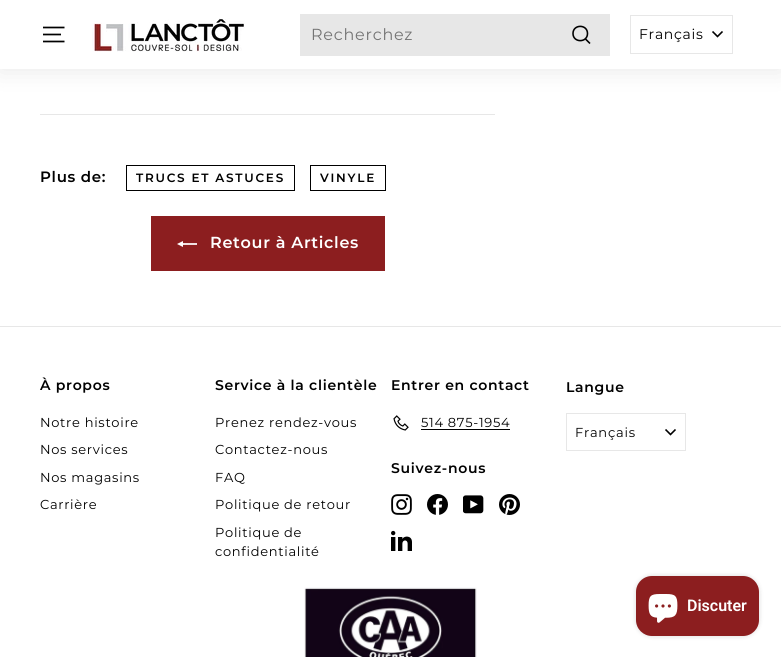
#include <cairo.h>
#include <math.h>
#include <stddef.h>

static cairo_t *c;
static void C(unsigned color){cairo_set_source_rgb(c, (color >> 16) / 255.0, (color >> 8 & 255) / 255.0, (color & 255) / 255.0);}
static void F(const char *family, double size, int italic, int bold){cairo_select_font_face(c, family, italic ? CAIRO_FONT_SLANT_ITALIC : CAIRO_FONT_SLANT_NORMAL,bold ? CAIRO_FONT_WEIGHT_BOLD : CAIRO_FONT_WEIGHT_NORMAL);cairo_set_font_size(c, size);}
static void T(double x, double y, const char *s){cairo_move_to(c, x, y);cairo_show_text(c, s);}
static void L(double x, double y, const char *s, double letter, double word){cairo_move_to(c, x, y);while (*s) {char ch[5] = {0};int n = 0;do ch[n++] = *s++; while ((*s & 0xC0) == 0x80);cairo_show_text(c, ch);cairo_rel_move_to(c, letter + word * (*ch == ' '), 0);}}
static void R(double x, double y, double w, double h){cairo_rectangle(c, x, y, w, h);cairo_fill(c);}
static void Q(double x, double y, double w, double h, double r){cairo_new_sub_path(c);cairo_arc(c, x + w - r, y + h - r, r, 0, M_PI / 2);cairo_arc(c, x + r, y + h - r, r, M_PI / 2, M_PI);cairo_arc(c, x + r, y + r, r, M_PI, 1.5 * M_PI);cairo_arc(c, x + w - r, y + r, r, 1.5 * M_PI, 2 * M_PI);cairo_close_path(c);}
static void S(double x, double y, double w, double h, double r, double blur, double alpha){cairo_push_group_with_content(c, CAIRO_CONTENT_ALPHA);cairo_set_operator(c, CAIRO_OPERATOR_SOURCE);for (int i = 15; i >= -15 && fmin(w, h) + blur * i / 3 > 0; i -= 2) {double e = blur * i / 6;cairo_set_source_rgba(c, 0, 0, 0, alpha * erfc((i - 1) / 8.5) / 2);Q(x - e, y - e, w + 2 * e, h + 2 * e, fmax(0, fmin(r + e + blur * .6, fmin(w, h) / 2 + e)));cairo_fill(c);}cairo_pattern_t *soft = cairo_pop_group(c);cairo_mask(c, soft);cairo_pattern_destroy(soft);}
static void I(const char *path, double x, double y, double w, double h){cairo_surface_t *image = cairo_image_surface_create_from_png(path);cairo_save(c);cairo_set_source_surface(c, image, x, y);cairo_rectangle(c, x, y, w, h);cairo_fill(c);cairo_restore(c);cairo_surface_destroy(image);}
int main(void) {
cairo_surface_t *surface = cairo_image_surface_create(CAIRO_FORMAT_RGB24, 781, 657);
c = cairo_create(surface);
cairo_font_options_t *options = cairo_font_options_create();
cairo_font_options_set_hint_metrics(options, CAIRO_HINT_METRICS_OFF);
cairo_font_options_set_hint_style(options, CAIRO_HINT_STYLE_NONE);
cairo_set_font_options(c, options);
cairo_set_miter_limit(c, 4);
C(0xffffff);
cairo_paint(c);
C(0x000000);
S(0,0,781,69,0,12.5,.1);
C(0xffffff);
R(0,0,781,69);
cairo_new_path(c);
cairo_move_to(c,43,27.5);
cairo_line_to(c,64.5,27.5);
cairo_move_to(c,43,34.5);
cairo_line_to(c,61,34.5);
cairo_move_to(c,43,41.5);
cairo_line_to(c,64.5,41.5);
C(0x000000);
cairo_set_line_width(c,1.7);
cairo_stroke(c);
I("1.png",92,18,153,34);
C(0xe7e7e7);
R(300,14,310,42);
F("Montserrat",16,0,0);
C(0x747474);
L(311,40,"Recherchez",.75,0);
cairo_new_path(c);
cairo_move_to(c,587.5,33.5);
cairo_curve_to(c,587.5,43,573,43,573,33.5);
cairo_curve_to(c,573,24,587.5,24,587.5,33.5);
cairo_close_path(c);
cairo_move_to(c,590,43.5);
cairo_line_to(c,585.5,39);
C(0x000000);
cairo_set_line_width(c,1.6);
cairo_stroke(c);
cairo_rectangle(c,630.5,15.5,102,38);
C(0xe7e7e7);
cairo_set_line_width(c,1);
cairo_stroke(c);
F("Montserrat",14,0,0);
C(0x000000);
L(639,39,"Français",.7,0);
cairo_new_path(c);
cairo_move_to(c,712.5,31.5);
cairo_line_to(c,717.5,36.5);
cairo_line_to(c,722.5,31.5);
cairo_set_line_width(c,1.6);
cairo_stroke(c);
C(0xe7e7e7);
R(40,114,455,1);
F("Montserrat SemiBold",15,0,0);
C(0x000000);
L(40,182,"Plus de:",.7,0);
cairo_rectangle(c,126.5,165.5,168,25);
cairo_set_line_width(c,1);
cairo_stroke(c);
F("Montserrat SemiBold",12,0,0);
L(136,182,"TRUCS ET ASTUCES",1.75,0);
cairo_rectangle(c,310.5,165.5,75,25);
cairo_stroke(c);
L(320,182,"VINYLE",1.75,0);
C(0x8c1e1f);
R(151,216,234,55);
I("2.png",177,241,20,6);
F("Montserrat SemiBold",16,0,0);
C(0xffffff);
L(210,248,"Retour à Articles",.7,0);
C(0xe7e7e7);
R(0,326,781,1);
F("Montserrat SemiBold",14,0,0);
C(0x000000);
L(40,390,"À propos",.7,0);
F("Montserrat",13,0,0);
L(40,427,"Notre histoire",.7,0);
L(40,454,"Nos services",.7,0);
L(40,482,"Nos magasins",.7,0);
L(40,509,"Carrière",.7,0);
F("Montserrat SemiBold",14,0,0);
L(215,390,"Service à la clientèle",.7,0);
F("Montserrat",13,0,0);
L(215,427,"Prenez rendez-vous",.7,0);
L(215,454,"Contactez-nous",.7,0);
L(215,482,"FAQ",.7,0);
L(215,509,"Politique de retour",.7,0);
L(215,537,"Politique de",.7,0);
L(215,556,"confidentialité",.7,0);
F("Montserrat SemiBold",14,0,0);
L(391,390,"Entrer en contact",.7,0);
I("3.png",393,415,16,16);
F("Montserrat",13,0,0);
L(421,427,"514 875-1954",.7,0);
R(421,429,89,1);
F("Montserrat SemiBold",14,0,0);
L(391,473,"Suivez-nous",.7,0);
I("4.png",391,494,21,21);
I("5.png",427,494,21,21);
I("6.png",463,495,21,19);
I("7.png",499,494,21,21);
I("8.png",391,530,21,21);
L(566,392,"Langue",.7,0);
cairo_rectangle(c,566.5,413.5,119,37);
C(0xe7e7e7);
cairo_stroke(c);
F("Montserrat",13,0,0);
C(0x000000);
L(575,437,"Français",.75,0);
cairo_new_path(c);
cairo_move_to(c,665.5,429.5);
cairo_line_to(c,670.5,434.5);
cairo_line_to(c,675.5,429.5);
cairo_set_line_width(c,1.6);
cairo_stroke(c);
I("9.png",304,587,173,70);
C(0x000000);
S(636,576,123,60,16,2.5,.15);
C(0x8c1e1f);
Q(636,576,123,60,16);
cairo_fill(c);
I("10.png",648,594,30,29);
F("Roboto SemiBold",16,0,0);
C(0xffffff);
T(687,611,"Discuter");
cairo_surface_write_to_png(surface, "o.png");
cairo_font_options_destroy(options);
cairo_destroy(c);
cairo_surface_destroy(surface);
return 0;
}
